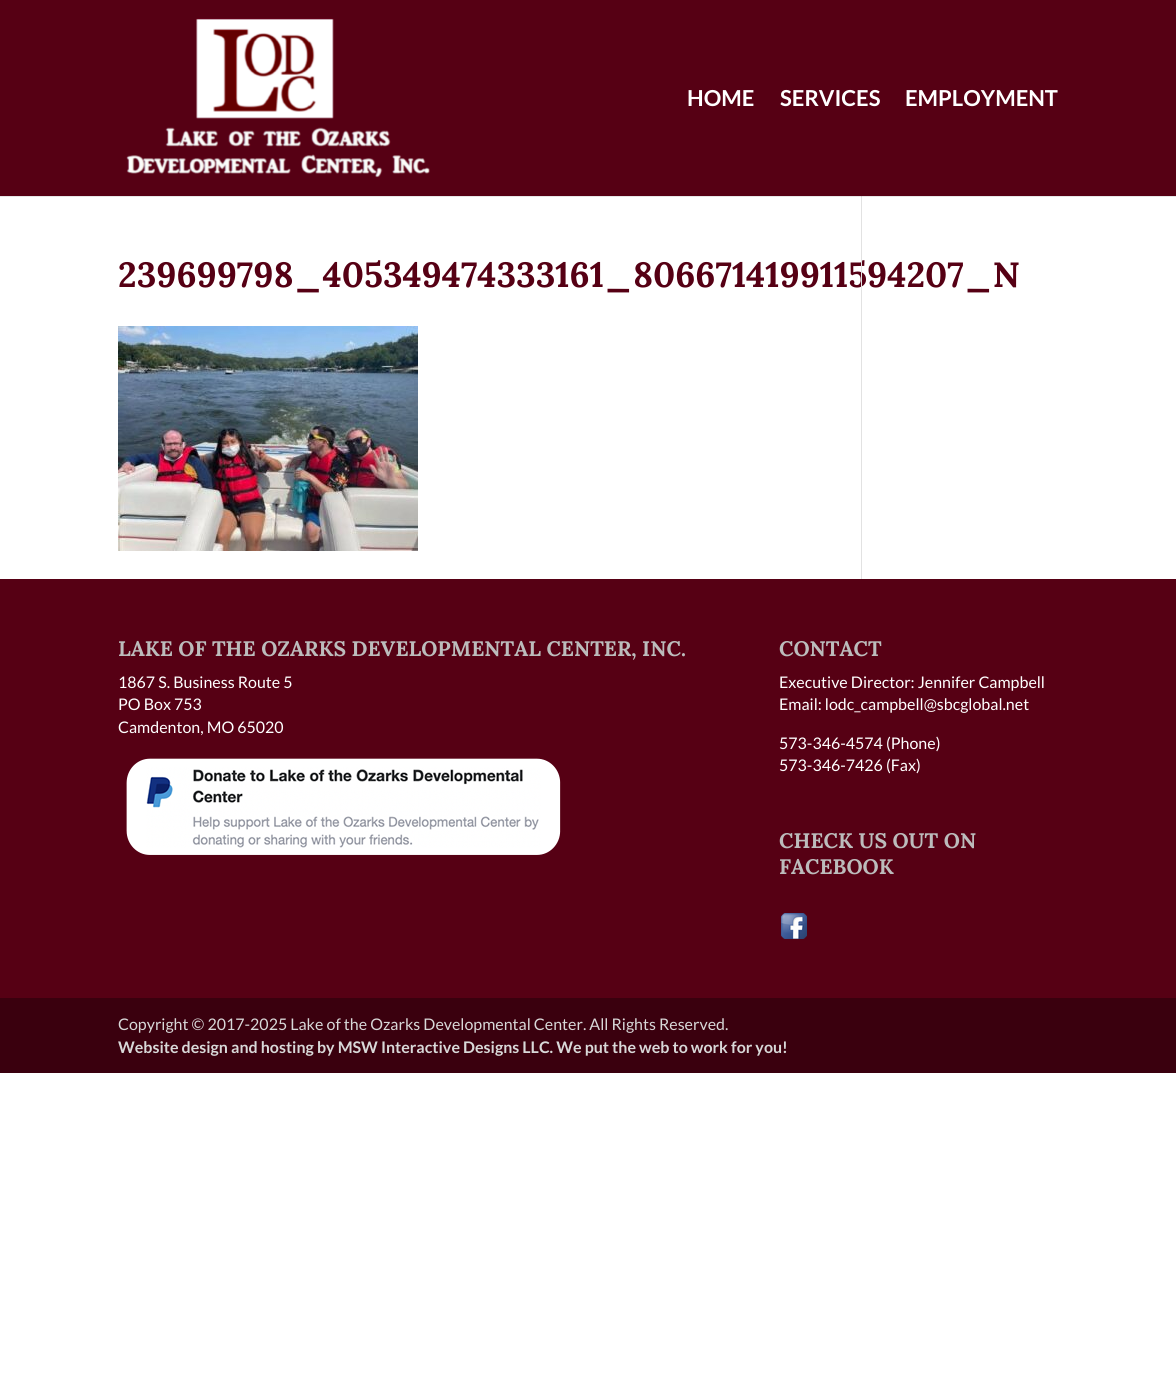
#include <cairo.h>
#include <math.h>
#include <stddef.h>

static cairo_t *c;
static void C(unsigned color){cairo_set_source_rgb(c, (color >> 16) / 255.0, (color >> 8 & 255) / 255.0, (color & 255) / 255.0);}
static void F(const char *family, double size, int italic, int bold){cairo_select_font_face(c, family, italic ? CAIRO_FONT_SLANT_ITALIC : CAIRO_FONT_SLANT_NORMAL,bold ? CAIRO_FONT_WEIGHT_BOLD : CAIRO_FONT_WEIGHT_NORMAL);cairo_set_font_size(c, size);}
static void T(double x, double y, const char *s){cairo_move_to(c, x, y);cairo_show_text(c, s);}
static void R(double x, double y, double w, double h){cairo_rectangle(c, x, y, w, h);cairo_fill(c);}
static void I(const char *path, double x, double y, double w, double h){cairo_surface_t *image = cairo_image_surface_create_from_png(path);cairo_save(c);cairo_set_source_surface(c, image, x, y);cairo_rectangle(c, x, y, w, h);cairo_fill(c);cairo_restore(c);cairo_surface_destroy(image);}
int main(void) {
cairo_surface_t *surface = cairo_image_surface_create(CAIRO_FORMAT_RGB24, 1176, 1399);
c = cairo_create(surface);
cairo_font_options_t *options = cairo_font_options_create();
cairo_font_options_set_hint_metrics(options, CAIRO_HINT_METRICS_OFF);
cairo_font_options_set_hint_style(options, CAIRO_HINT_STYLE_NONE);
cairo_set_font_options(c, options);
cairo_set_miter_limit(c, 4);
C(0xffffff);
cairo_paint(c);
C(0xe6e6e6);
R(0,196,1176,1);
C(0x560014);
R(0,0,1176,196);
I("1.png",126,18,304,160);
F("Lato",22,0,1);
C(0xffffff);
T(687,106,"HOME");
T(780,106,"SERVICES");
T(905,106,"EMPLOYMENT");
F("Lora",35,0,1);
C(0x560014);
T(118,287,"239699798_405349474333161_806671419911594207_N");
C(0xe2e2e2);
R(861,196,1,383);
C(0xcbcbcb);
R(861,196,1,1);
I("2.png",118,326,300,225);
C(0x560014);
R(0,579,1176,419);
F("Lora",21,0,1);
C(0xbcbcbc);
T(118,656,"LAKE OF THE OZARKS DEVELOPMENTAL CENTER, INC.");
F("Lato",16,0,0);
C(0xffffff);
T(118,688,"1867 S. Business Route 5");
T(118,710,"PO Box 753");
T(118,733,"Camdenton, MO 65020");
I("3.png",126,758,435,97);
F("Lora",21,0,1);
C(0xbcbcbc);
T(779,656,"CONTACT");
F("Lato",16,0,0);
C(0xffffff);
T(779,688,"Executive Director: Jennifer Campbell");
T(779,710,"Email: lodc_campbell@sbcglobal.net");
T(779,749,"573-346-4574 (Phone)");
T(779,771,"573-346-7426 (Fax)");
F("Lora",21,0,1);
C(0xbcbcbc);
T(779,848,"CHECK US OUT ON");
T(779,874,"FACEBOOK");
I("4.png",781,913,26,26);
C(0x3a000e);
R(0,998,1176,75);
F("Lato",16,0,0);
C(0xd8d8d8);
T(118,1030,"Copyright © 2017-2025 Lake of the Ozarks Developmental Center. All Rights Reserved.");
F("Lato",16,0,1);
T(118,1053,"Website design and hosting by MSW Interactive Designs LLC. We put the web to work for you!");
cairo_surface_write_to_png(surface, "o.png");
cairo_font_options_destroy(options);
cairo_destroy(c);
cairo_surface_destroy(surface);
return 0;
}
